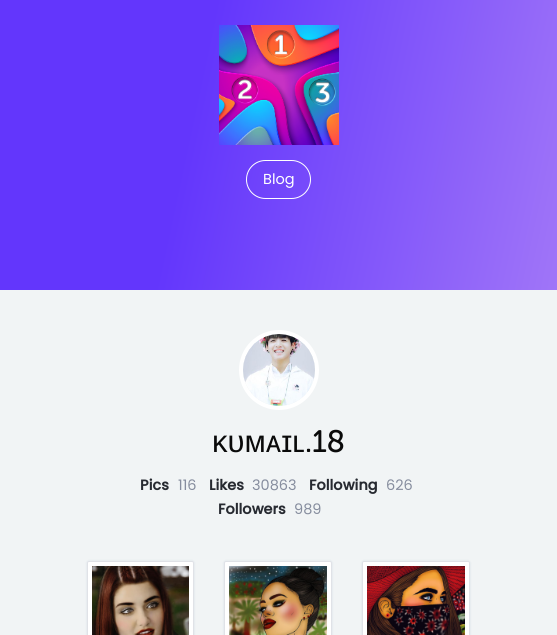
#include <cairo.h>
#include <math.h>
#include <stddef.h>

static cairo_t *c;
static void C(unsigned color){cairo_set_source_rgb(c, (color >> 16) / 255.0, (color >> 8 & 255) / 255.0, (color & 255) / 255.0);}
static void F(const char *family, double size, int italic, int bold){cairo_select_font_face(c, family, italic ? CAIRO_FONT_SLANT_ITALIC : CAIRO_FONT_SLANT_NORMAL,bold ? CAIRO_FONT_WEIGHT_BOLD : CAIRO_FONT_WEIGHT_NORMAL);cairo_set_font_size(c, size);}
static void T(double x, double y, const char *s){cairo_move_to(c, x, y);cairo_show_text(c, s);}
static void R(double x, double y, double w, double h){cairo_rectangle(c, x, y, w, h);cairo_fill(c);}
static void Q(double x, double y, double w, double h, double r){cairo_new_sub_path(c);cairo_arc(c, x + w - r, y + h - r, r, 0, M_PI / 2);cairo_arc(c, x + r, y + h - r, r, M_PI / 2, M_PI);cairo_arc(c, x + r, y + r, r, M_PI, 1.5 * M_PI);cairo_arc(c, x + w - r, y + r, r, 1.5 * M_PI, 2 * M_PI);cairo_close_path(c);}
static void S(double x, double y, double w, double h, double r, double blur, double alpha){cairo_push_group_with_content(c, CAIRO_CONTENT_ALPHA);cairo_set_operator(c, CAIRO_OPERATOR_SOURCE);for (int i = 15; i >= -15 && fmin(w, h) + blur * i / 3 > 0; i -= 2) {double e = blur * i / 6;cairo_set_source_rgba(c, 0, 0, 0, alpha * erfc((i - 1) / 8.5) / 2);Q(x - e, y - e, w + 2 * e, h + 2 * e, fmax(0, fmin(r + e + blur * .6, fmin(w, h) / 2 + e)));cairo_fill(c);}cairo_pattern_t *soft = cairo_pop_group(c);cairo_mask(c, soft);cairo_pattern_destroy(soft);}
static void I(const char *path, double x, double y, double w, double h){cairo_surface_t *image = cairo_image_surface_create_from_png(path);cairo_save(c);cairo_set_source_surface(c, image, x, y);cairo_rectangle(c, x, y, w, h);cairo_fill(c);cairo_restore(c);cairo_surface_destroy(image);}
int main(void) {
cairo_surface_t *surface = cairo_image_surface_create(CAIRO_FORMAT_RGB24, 557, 635);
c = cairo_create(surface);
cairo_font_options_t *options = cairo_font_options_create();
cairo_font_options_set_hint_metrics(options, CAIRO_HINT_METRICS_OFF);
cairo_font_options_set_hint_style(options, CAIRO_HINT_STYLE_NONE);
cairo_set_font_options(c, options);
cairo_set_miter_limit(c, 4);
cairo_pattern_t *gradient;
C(0xf1f4f5);
cairo_paint(c);
gradient = cairo_pattern_create_linear(-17,82,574,208);
cairo_pattern_add_color_stop_rgba(gradient,.35,0.388,0.212,0.988,1);
cairo_pattern_add_color_stop_rgba(gradient,1,0.627,0.459,0.973,1);
cairo_set_source(c,gradient);
cairo_pattern_destroy(gradient);
R(0,0,557,290);
I("1.png",219,25,120,120);
Q(246.5,160.5,64,38,19);
C(0xffffff);
cairo_set_line_width(c,1);
cairo_stroke(c);
F("Poppins",14.5,0,0);
T(263,184,"Blog");
cairo_new_path(c);
cairo_arc(c,279,370,38,0,2 * M_PI);
cairo_set_line_width(c,4);
cairo_stroke(c);
I("2.png",243,334,72,72);
F("Liberation Sans",31,0,0);
C(0x0a0a0a);
T(212,452,"ᴋᴜᴍᴀɪʟ");
F("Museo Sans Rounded",31,0,0);
T(305,452,".18");
F("Poppins",14.5,0,1);
C(0x272a31);
T(140,490,"Pics");
F("Poppins",14.5,0,0);
C(0x868d9e);
T(178,490,"116");
F("Poppins",14.5,0,1);
C(0x272a31);
T(209,490,"Likes");
F("Poppins",14.5,0,0);
C(0x868d9e);
T(252,490,"30863");
F("Poppins",14.5,0,1);
C(0x272a31);
T(309,490,"Following");
F("Poppins",14.5,0,0);
C(0x868d9e);
T(386,490,"626");
F("Poppins",14.5,0,1);
C(0x272a31);
T(218,514,"Followers");
F("Poppins",14.5,0,0);
C(0x868d9e);
T(294,514,"989");
C(0x0e3365);
S(87,561,107,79,2,1,.1);
C(0xffffff);
Q(87.5,561.5,106,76,1.5);
cairo_fill_preserve(c);
C(0xe0e2e7);
cairo_set_line_width(c,1);
cairo_stroke(c);
I("3.png",92,566,97,69);
C(0x0e3365);
S(224,561,108,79,2,1,.1);
C(0xffffff);
Q(224.5,561.5,107,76,1.5);
cairo_fill_preserve(c);
C(0xe0e2e7);
cairo_stroke(c);
I("4.png",229,566,98,69);
C(0x0e3365);
S(362,561,108,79,2,1,.1);
C(0xffffff);
Q(362.5,561.5,107,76,1.5);
cairo_fill_preserve(c);
C(0xe0e2e7);
cairo_stroke(c);
I("5.png",367,566,98,69);
cairo_surface_write_to_png(surface, "o.png");
cairo_font_options_destroy(options);
cairo_destroy(c);
cairo_surface_destroy(surface);
return 0;
}
